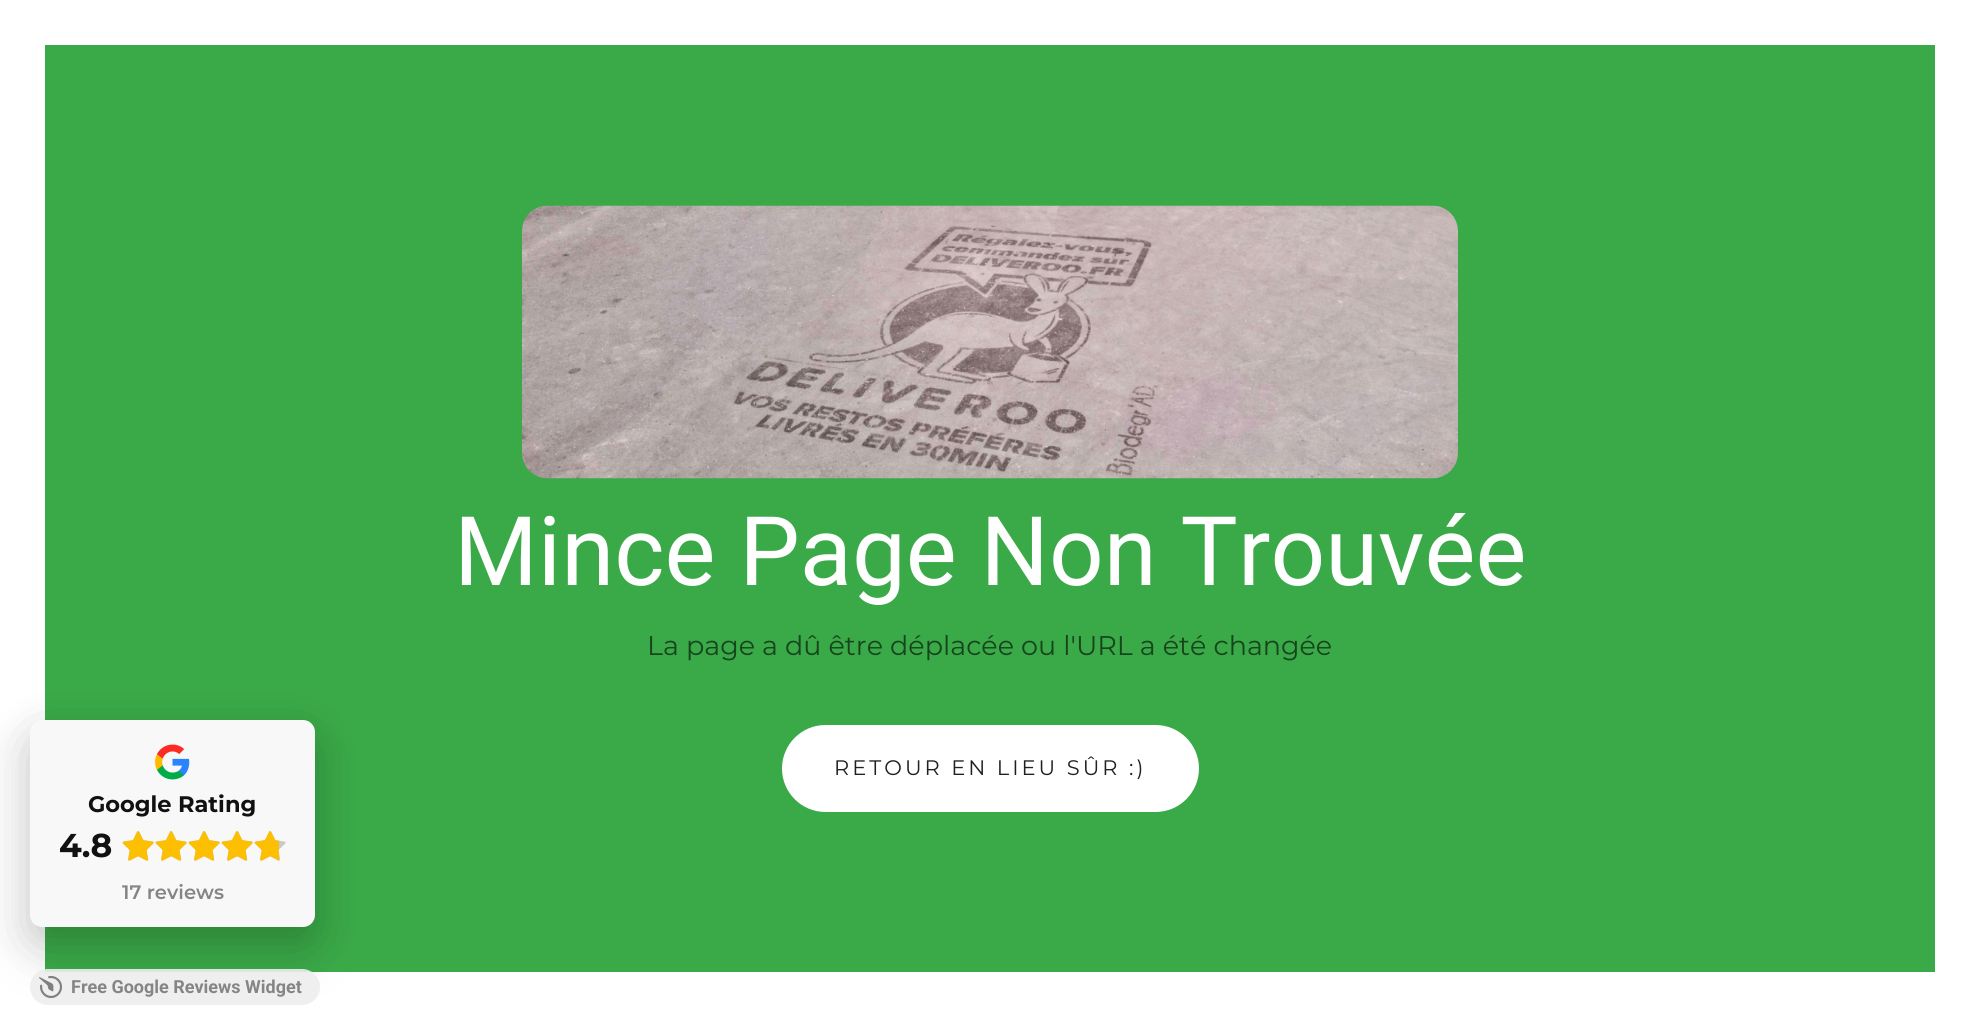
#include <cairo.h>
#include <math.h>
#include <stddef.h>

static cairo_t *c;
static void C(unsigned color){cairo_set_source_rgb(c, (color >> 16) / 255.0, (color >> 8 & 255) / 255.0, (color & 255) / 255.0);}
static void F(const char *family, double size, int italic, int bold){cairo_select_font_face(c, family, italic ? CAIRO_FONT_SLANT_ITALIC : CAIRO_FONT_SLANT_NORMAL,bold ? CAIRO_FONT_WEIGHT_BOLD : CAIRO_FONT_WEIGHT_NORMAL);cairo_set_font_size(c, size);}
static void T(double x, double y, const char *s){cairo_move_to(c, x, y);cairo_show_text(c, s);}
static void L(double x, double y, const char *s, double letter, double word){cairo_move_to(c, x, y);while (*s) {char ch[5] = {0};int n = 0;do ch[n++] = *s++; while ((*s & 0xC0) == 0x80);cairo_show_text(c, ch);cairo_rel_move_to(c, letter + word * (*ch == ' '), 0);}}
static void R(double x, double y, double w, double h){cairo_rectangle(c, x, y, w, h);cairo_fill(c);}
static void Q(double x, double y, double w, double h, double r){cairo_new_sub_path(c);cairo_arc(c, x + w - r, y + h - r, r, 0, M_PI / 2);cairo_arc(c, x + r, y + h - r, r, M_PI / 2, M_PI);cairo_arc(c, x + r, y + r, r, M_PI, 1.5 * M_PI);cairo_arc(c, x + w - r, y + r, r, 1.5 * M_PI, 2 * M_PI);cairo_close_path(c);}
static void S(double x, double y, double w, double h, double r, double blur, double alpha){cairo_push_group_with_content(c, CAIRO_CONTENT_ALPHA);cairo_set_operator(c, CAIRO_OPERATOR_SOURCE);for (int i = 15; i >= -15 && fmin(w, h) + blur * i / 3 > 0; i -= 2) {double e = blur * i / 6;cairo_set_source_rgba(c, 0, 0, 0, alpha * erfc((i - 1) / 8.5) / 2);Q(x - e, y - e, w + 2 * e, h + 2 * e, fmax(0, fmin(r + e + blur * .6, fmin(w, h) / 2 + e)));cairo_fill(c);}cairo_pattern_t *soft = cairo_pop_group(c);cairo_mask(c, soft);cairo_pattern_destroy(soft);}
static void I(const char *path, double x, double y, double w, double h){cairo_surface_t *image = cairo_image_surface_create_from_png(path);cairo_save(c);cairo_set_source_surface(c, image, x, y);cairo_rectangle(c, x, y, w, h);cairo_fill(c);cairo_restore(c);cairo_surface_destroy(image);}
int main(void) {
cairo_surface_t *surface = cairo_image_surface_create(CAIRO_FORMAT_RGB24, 1980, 1017);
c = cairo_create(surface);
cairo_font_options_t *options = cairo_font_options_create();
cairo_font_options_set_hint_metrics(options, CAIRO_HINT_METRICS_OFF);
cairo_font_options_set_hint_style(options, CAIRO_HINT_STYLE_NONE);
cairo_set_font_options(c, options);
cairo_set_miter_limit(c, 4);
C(0xffffff);
cairo_paint(c);
C(0x3aaa48);
R(45,45,1890,927);
I("1.png",522,205,936,274);
F("Roboto",96,0,0);
C(0xffffff);
T(454,585,"Mince Page Non Trouvée");
F("Montserrat",27,0,0);
C(0x17441d);
T(647,655,"La page a dû être déplacée ou l'URL a été changée");
C(0xffffff);
Q(782,725,417,87,43.5);
cairo_fill(c);
F("Montserrat",21,0,0);
C(0x202020);
L(834,775,"RETOUR EN LIEU SÛR :)",3,0);
C(0x000000);
S(30,735,285,207,12,22.5,.15);
S(30,743,285,207,12,30,.1);
C(0xf8f8f8);
Q(30,720,285,207,12);
cairo_fill(c);
I("2.png",155,744,35,36);
F("Montserrat",22.5,0,1);
C(0x111111);
T(88,812,"Google Rating");
F("Montserrat",33,0,1);
T(59,857,"4.8");
I("3.png",122,831,32,30);
I("4.png",122,831,32,30);
I("3.png",155,831,32,30);
I("4.png",155,831,32,30);
I("3.png",188,831,32,30);
I("4.png",188,831,32,30);
I("3.png",221,831,32,30);
I("4.png",221,831,32,30);
I("3.png",254,831,32,30);
I("5.png",254,831,25,30);
F("Montserrat SemiBold",19.5,0,0);
C(0x858585);
T(122,899,"17 reviews");
cairo_set_source_rgba(c,0.933,0.933,0.933,0.9);
Q(30,969,290,36,18);
cairo_fill(c);
I("6.png",39,975,23,23);
F("Roboto",18,0,1);
C(0x858585);
T(71,993,"Free Google Reviews Widget");
cairo_surface_write_to_png(surface, "o.png");
cairo_font_options_destroy(options);
cairo_destroy(c);
cairo_surface_destroy(surface);
return 0;
}
